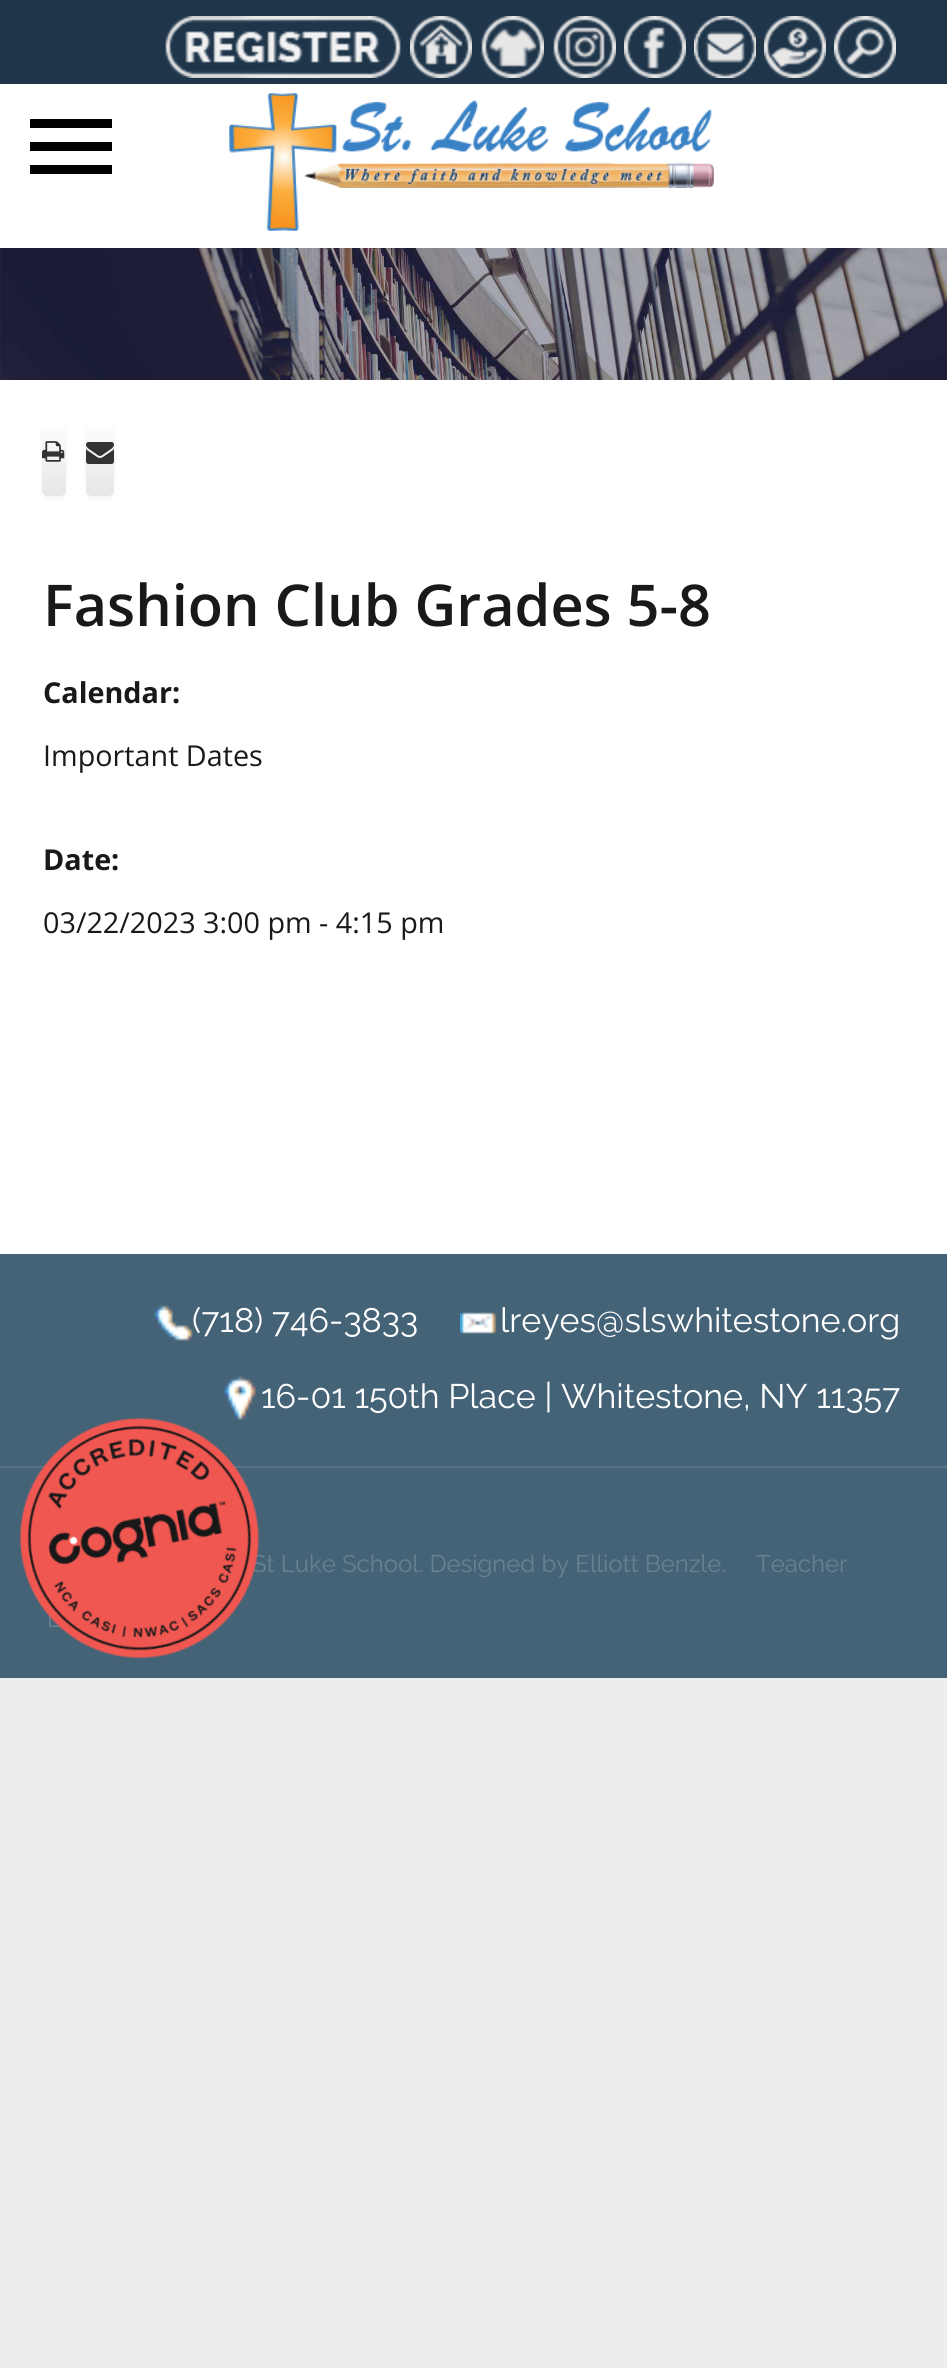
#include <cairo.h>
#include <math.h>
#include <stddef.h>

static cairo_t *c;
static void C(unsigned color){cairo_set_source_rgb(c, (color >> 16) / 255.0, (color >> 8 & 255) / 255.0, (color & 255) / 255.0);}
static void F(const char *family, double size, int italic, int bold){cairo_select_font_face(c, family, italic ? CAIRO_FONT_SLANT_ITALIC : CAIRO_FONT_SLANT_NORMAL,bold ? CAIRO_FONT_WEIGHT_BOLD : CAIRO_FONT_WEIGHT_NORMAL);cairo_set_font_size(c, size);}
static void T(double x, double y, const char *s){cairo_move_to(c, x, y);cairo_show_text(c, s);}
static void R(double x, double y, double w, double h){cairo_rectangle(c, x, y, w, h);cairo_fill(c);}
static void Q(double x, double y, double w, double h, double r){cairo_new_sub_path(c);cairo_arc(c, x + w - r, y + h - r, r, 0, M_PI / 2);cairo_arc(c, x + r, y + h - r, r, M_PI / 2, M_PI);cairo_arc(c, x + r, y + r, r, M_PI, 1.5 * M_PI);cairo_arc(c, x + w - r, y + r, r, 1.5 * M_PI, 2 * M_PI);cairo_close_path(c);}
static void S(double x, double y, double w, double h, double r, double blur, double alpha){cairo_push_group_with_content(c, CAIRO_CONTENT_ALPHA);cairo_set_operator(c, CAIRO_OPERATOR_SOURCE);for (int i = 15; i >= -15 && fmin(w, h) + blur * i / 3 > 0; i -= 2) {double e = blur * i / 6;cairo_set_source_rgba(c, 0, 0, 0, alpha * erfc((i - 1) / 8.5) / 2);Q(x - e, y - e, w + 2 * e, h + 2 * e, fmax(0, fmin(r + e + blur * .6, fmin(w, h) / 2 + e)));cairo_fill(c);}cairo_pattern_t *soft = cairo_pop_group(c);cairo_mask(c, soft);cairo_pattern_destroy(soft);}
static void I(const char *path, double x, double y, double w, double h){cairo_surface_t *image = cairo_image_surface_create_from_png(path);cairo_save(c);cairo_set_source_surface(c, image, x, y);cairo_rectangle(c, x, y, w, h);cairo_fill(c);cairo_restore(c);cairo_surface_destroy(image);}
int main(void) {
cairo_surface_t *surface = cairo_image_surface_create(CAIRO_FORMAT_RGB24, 947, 2368);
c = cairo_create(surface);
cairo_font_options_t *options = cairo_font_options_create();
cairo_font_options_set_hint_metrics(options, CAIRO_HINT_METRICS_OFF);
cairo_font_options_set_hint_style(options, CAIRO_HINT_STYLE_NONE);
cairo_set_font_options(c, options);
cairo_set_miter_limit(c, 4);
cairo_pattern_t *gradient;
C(0xeeeded);
cairo_paint(c);
C(0x1e354a);
R(0,0,947,84);
I("1.png",165,16,236,62);
I("2.png",410,16,62,62);
I("3.png",481,16,63,62);
I("4.png",553,16,63,62);
I("5.png",624,16,62,62);
I("6.png",694,16,62,62);
I("7.png",764,16,62,62);
I("8.png",834,16,62,62);
C(0xffffff);
R(0,84,947,164);
C(0x000000);
cairo_new_path(c);
cairo_move_to(c,30,174);
cairo_line_to(c,30,165);
cairo_line_to(c,112,165);
cairo_line_to(c,112,174);
cairo_close_path(c);
cairo_move_to(c,30,151);
cairo_line_to(c,30,142);
cairo_line_to(c,112,142);
cairo_line_to(c,112,151);
cairo_close_path(c);
cairo_move_to(c,30,119);
cairo_line_to(c,112,119);
cairo_line_to(c,112,128);
cairo_line_to(c,30,128);
cairo_close_path(c);
cairo_fill(c);
I("9.png",229,93,485,138);
C(0xffffff);
R(0,380,947,874);
I("10.png",0,248,947,132);
C(0x000000);
S(42,422,24,76,6,2,.05);
gradient = cairo_pattern_create_linear(54,420,54,496);
cairo_pattern_add_color_stop_rgba(gradient,0,1,1,1,1);
cairo_pattern_add_color_stop_rgba(gradient,1,0.902,0.902,0.902,1);
cairo_set_source(c,gradient);
cairo_pattern_destroy(gradient);
Q(42,420,24,76,6);
cairo_fill(c);
I("11.png",42,441,23,21);
C(0x000000);
S(86,422,28,76,6,2,.05);
gradient = cairo_pattern_create_linear(100,420,100,496);
cairo_pattern_add_color_stop_rgba(gradient,0,1,1,1,1);
cairo_pattern_add_color_stop_rgba(gradient,1,0.902,0.902,0.902,1);
cairo_set_source(c,gradient);
cairo_pattern_destroy(gradient);
Q(86,420,28,76,6);
cairo_fill(c);
I("12.png",86,442,28,22);
F("Open Sans SemiBold",57.6,0,0);
C(0x191919);
T(43,626,"Fashion Club Grades 5-8");
F("Open Sans",28.75,0,1);
T(43,703,"Calendar:");
F("Open Sans",28.75,0,0);
T(43,766,"Important Dates");
F("Open Sans",28.75,0,1);
T(43,870,"Date:");
F("Open Sans",28.75,0,0);
T(43,933,"03/22/2023 3:00 pm - 4:15 pm");
C(0x446377);
R(0,1254,947,212);
I("13.png",154,1305,39,36);
F("Raleway",34,0,0);
C(0xffffff);
T(192,1332,"(718) 746-3833");
I("14.png",460,1312,37,22);
T(500,1332,"lreyes@slswhitestone.org");
I("15.png",224,1376,32,44);
T(261,1408,"16-01 150th Place | Whitestone, NY 11357");
C(0x446377);
R(0,1468,947,210);
C(0x567284);
R(0,1466,947,2);
F("Raleway",24,0,0);
C(0x688191);
T(252,1572,"St Luke School. Designed by Elliott Benzle.");
T(756,1572,"Teacher");
T(47,1627,"L");
I("16.png",19,1417,241,242);
cairo_surface_write_to_png(surface, "o.png");
cairo_font_options_destroy(options);
cairo_destroy(c);
cairo_surface_destroy(surface);
return 0;
}
